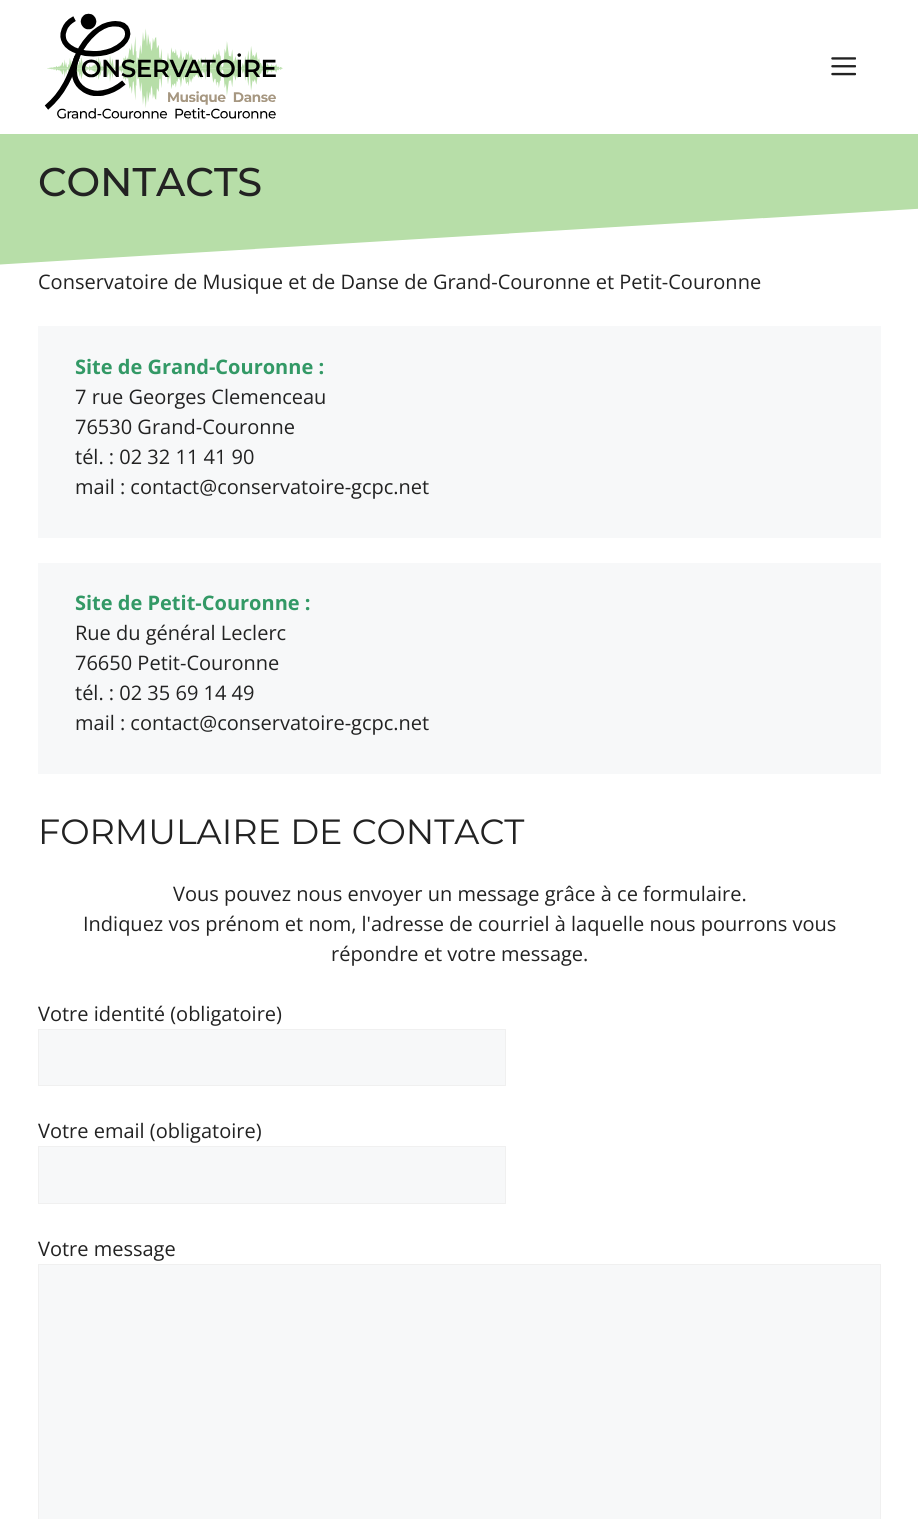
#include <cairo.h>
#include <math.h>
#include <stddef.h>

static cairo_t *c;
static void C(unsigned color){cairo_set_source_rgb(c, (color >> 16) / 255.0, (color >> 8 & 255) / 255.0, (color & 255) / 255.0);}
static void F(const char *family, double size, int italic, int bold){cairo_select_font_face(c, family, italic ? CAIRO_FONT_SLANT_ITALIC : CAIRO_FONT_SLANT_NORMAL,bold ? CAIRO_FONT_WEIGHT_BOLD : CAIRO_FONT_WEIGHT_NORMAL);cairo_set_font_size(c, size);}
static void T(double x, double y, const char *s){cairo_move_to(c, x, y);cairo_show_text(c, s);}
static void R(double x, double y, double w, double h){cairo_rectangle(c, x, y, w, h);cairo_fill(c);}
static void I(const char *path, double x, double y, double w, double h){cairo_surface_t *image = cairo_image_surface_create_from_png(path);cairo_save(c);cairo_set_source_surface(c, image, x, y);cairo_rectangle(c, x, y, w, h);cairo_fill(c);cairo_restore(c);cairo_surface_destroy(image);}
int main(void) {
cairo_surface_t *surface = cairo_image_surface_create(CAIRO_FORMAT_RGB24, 918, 1519);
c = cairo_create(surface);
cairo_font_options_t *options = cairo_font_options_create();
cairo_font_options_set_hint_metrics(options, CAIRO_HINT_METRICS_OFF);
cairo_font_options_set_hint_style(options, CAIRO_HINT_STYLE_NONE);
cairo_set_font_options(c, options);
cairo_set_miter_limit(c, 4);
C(0xffffff);
cairo_paint(c);
I("1.png",0,134,918,131);
I("2.png",44,13,239,106);
I("3.png",831,57,25,19);
F("Montserrat Medium",40,0,0);
C(0x222222);
T(38,196,"CONTACTS");
F("Open Sans",20,0,0);
T(38,289,"Conservatoire de Musique et de Danse de Grand-Couronne et Petit-Couronne");
C(0xf7f8f9);
R(38,326,843,212);
F("Open Sans",20,0,1);
C(0x339966);
T(75,374,"Site de Grand-Couronne :");
F("Open Sans",20,0,0);
C(0x222222);
T(75,404,"7 rue Georges Clemenceau");
T(75,434,"76530 Grand-Couronne");
T(75,464,"tél. : 02 32 11 41 90");
T(75,494,"mail : contact@conservatoire-gcpc.net");
C(0xf7f8f9);
R(38,563,843,211);
F("Open Sans",20,0,1);
C(0x339966);
T(75,610,"Site de Petit-Couronne :");
F("Open Sans",20,0,0);
C(0x222222);
T(75,640,"Rue du général Leclerc");
T(75,670,"76650 Petit-Couronne");
T(75,700,"tél. : 02 35 69 14 49");
T(75,730,"mail : contact@conservatoire-gcpc.net");
F("Montserrat",35,0,0);
T(38,844,"FORMULAIRE DE CONTACT");
F("Open Sans",20,0,0);
T(173,901,"Vous pouvez nous envoyer un message grâce à ce formulaire.");
T(83,931,"Indiquez vos prénom et nom, l'adresse de courriel à laquelle nous pourrons vous");
T(331,961,"répondre et votre message.");
T(38,1021,"Votre identité (obligatoire)");
C(0xf7f8f9);
cairo_rectangle(c,38.5,1029.5,467,56);
cairo_fill_preserve(c);
C(0xf0f0f0);
cairo_set_line_width(c,1);
cairo_stroke(c);
C(0x222222);
T(38,1138,"Votre email (obligatoire)");
C(0xf7f8f9);
cairo_rectangle(c,38.5,1146.5,467,57);
cairo_fill_preserve(c);
C(0xf0f0f0);
cairo_stroke(c);
C(0x222222);
T(38,1256,"Votre message");
C(0xf7f8f9);
cairo_rectangle(c,38.5,1264.5,842,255);
cairo_fill_preserve(c);
C(0xf0f0f0);
cairo_stroke(c);
cairo_surface_write_to_png(surface, "o.png");
cairo_font_options_destroy(options);
cairo_destroy(c);
cairo_surface_destroy(surface);
return 0;
}
